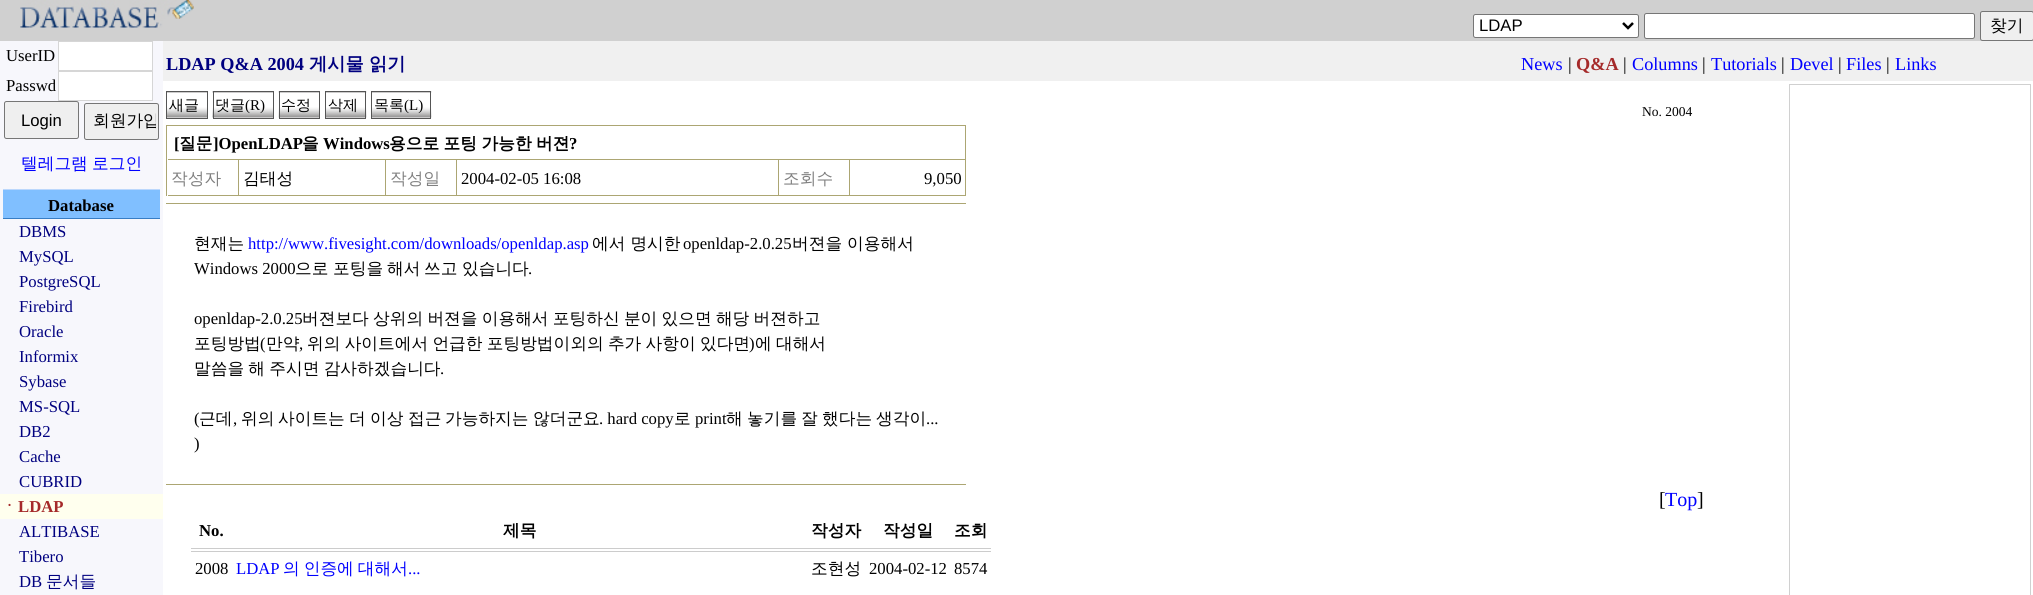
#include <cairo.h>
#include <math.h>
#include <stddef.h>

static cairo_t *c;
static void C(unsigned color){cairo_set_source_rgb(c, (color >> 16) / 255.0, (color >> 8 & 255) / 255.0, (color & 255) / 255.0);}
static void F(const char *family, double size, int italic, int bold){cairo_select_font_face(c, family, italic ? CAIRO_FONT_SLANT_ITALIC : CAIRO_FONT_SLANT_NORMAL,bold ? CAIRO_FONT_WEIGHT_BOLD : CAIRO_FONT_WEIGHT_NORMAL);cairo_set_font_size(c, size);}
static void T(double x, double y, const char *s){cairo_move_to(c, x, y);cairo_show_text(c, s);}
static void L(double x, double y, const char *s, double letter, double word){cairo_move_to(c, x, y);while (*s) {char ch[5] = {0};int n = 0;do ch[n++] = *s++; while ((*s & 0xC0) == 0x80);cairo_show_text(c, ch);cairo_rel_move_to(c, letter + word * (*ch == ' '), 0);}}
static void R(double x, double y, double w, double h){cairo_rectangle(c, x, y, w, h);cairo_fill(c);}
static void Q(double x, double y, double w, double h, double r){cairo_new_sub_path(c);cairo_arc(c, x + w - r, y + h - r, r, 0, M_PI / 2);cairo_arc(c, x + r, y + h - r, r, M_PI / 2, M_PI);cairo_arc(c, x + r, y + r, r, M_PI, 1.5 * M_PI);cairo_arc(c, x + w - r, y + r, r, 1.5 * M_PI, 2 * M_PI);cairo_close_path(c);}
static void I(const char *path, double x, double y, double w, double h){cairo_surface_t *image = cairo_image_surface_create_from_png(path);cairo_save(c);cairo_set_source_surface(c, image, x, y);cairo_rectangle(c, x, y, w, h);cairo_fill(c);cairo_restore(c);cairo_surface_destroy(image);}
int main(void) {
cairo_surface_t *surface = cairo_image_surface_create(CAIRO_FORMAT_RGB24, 2033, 595);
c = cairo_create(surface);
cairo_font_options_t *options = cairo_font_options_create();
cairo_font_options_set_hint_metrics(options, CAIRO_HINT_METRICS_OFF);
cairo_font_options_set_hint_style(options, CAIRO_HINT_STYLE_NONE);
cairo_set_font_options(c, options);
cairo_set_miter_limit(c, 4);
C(0xffffff);
cairo_paint(c);
C(0xd0d0d0);
R(0,0,2033,41);
I("1.png",20,0,174,28);
C(0xffffff);
Q(1473.5,14.5,165,23,2);
cairo_fill_preserve(c);
C(0x767676);
cairo_set_line_width(c,1);
cairo_stroke(c);
cairo_new_path(c);
cairo_move_to(c,1623,23);
cairo_line_to(c,1628,28);
cairo_line_to(c,1633,23);
C(0x000000);
cairo_set_line_width(c,2.5);
cairo_stroke(c);
F("Liberation Sans",16.7,0,0);
T(1479,31,"LDAP");
C(0xffffff);
Q(1644.5,13.5,330,25,2);
cairo_fill_preserve(c);
C(0x767676);
cairo_set_line_width(c,1);
cairo_stroke(c);
C(0xefefef);
Q(1980.5,11.5,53,29,2);
cairo_fill_preserve(c);
C(0x767676);
cairo_stroke(c);
F("WenQuanYi Zen Hei Medium",16.7,0,0);
C(0x000000);
T(1990,31,"찾기");
C(0xf7f7fc);
R(0,41,163,554);
F("Liberation Serif",16.7,0,0);
C(0x000000);
T(6,61,"UserID");
C(0xffffff);
cairo_rectangle(c,58.5,41.5,94,29);
cairo_fill_preserve(c);
C(0xd6d6d6);
cairo_stroke(c);
C(0x000000);
T(6,91,"Passwd");
C(0xffffff);
cairo_rectangle(c,58.5,71.5,94,29);
cairo_fill_preserve(c);
C(0xd6d6d6);
cairo_stroke(c);
C(0xefefef);
Q(4.5,101.5,74,37,2);
cairo_fill_preserve(c);
C(0x767676);
cairo_stroke(c);
F("Liberation Sans",16.7,0,0);
C(0x000000);
T(21,126,"Login");
C(0xefefef);
Q(84.5,103.5,74,36,2);
cairo_fill_preserve(c);
C(0x767676);
cairo_stroke(c);
cairo_save(c);
cairo_rectangle(c,86,105,70,33);
cairo_clip(c);
F("WenQuanYi Zen Hei Medium",16.7,0,0);
C(0x000000);
T(93,126,"회원가입");
cairo_restore(c);
F("WenQuanYi Zen Hei Medium",16.7,0,0);
C(0x0000ff);
L(21,169,"텔레그램 로그인",0,-.75);
C(0x80bfff);
R(3,190,157,28);
C(0xbbd7fc);
R(3,189,157,1);
C(0x377dc5);
R(3,218,157,1);
F("Liberation Serif",16.7,0,1);
C(0x000000);
T(48,211,"Database");
F("Liberation Serif",16.7,0,0);
C(0x000080);
T(19,237,"DBMS");
T(19,262,"MySQL");
T(19,287,"PostgreSQL");
T(19,312,"Firebird");
T(19,337,"Oracle");
T(19,362,"Informix");
T(19,387,"Sybase");
T(19,412,"MS-SQL");
T(19,437,"DB2");
T(19,462,"Cache");
T(19,487,"CUBRID");
C(0xffffee);
R(0,494,163,25);
F("WenQuanYi Zen Hei",16.7,0,1);
C(0xa52a2a);
T(1,512,"ㆍ");
F("Liberation Serif",16.7,0,1);
T(18,512,"LDAP");
F("Liberation Serif",16.7,0,0);
C(0x000080);
T(19,537,"ALTIBASE");
T(19,562,"Tibero");
T(19,587,"DB");
F("WenQuanYi Zen Hei Medium",16.7,0,0);
T(46,587,"문서들");
C(0xf0f0f0);
R(163,41,1870,40);
F("Liberation Serif",18.25,0,1);
C(0x000080);
T(166,70,"LDAP Q&A 2004");
F("WenQuanYi Zen Hei",18.25,0,1);
T(309,70,"게시물");
T(369,70,"읽기");
F("Liberation Serif",18.25,0,0);
C(0x0000ff);
T(1521,70,"News");
C(0x000000);
T(1568,70,"|");
F("Liberation Serif",18.25,0,1);
C(0xa52a2a);
T(1576,70,"Q&A");
F("Liberation Serif",18.25,0,0);
C(0x000000);
T(1623,70,"|");
C(0x0000ff);
T(1632,70,"Columns");
C(0x000000);
T(1702,70,"|");
C(0x0000ff);
T(1711,70,"Tutorials");
C(0x000000);
T(1781,70,"|");
C(0x0000ff);
T(1790,70,"Devel");
C(0x000000);
T(1838,70,"|");
C(0x0000ff);
T(1846,70,"Files");
C(0x000000);
T(1886,70,"|");
C(0x0000ff);
T(1895,70,"Links");
I("2.png",167,92,40,26);
cairo_rectangle(c,166.5,91.5,41,27);
C(0x555555);
cairo_stroke(c);
F("WenQuanYi Zen Hei Medium",15,0,0);
C(0x000000);
T(169,110,"새글");
I("3.png",212,91,61,28);
cairo_rectangle(c,213.5,91.5,60,27);
C(0x555555);
cairo_stroke(c);
C(0x000000);
T(215,110,"댓글");
F("Liberation Serif",15,0,0);
T(245,110,"(R)");
I("4.png",278,91,41,28);
cairo_rectangle(c,279.5,91.5,40,27);
C(0x555555);
cairo_stroke(c);
F("WenQuanYi Zen Hei Medium",15,0,0);
C(0x000000);
T(281,110,"수정");
I("5.png",326,91,41,28);
cairo_rectangle(c,325.5,91.5,40,27);
C(0x555555);
cairo_stroke(c);
C(0x000000);
T(328,110,"삭제");
I("6.png",372,91,60,28);
cairo_rectangle(c,371.5,91.5,59,27);
C(0x555555);
cairo_stroke(c);
C(0x000000);
T(374,110,"목록");
F("Liberation Serif",15,0,0);
T(404,110,"(L)");
F("Liberation Serif",13.5,0,0);
T(1642,116,"No. 2004");
C(0xaca673);
R(166,125,800,1);
R(166,125,1,71);
R(965,126,1,70);
R(168,159,798,1);
F("Liberation Serif",16.7,0,1);
C(0x000000);
T(174,149,"[");
F("WenQuanYi Zen Hei",16.7,0,1);
T(179,149,"질문");
F("Liberation Serif",16.7,0,1);
T(213,149,"]OpenLDAP");
F("WenQuanYi Zen Hei",16.7,0,1);
T(302,149,"을");
F("Liberation Serif",16.7,0,1);
T(323,149,"Windows");
F("WenQuanYi Zen Hei",16.7,0,1);
L(389,149,"용으로 포팅 가능한 버젼",0,-.5);
F("Liberation Serif",16.7,0,1);
T(569,149,"?");
C(0xaca673);
R(238,160,1,36);
R(168,195,71,1);
F("WenQuanYi Zen Hei Medium",16.7,0,0);
C(0x808080);
T(171,184,"작성자");
C(0xaca673);
R(385,160,1,36);
R(239,195,147,1);
C(0x000000);
T(243,184,"김태성");
C(0xaca673);
R(456,160,1,36);
R(386,195,72,1);
C(0x808080);
T(390,184,"작성일");
C(0xaca673);
R(778,160,1,36);
R(458,195,321,1);
F("Liberation Serif",16.7,0,0);
C(0x000000);
T(461,184,"2004-02-05 16:08");
C(0xaca673);
R(849,160,1,36);
R(779,195,187,1);
F("WenQuanYi Zen Hei Medium",16.7,0,0);
C(0x808080);
T(783,184,"조회수");
F("Liberation Serif",16.7,0,0);
C(0x000000);
T(924,184,"9,050");
C(0xaca673);
R(166,203,800,1);
R(166,484,800,1);
F("WenQuanYi Zen Hei Medium",16.7,0,0);
C(0x000000);
T(194,249,"현재는");
F("Liberation Serif",16.7,0,0);
C(0x0000ff);
T(248,249,"http://www.fivesight.com/downloads/openldap.asp");
F("WenQuanYi Zen Hei Medium",16.7,0,0);
C(0x000000);
T(592,249,"에서 명시한");
F("Liberation Serif",16.7,0,0);
T(683,249,"openldap-2.0.25");
F("WenQuanYi Zen Hei Medium",16.7,0,0);
T(792,249,"버젼을 이용해서");
F("Liberation Serif",16.7,0,0);
T(194,274,"Windows 2000");
F("WenQuanYi Zen Hei Medium",16.7,0,0);
T(295,274,"으로");
T(333,274,"포팅을");
T(387,274,"해서");
T(424,274,"쓰고");
T(462,274,"있습니다");
F("Liberation Serif",16.7,0,0);
T(528,274,".");
T(194,324,"openldap-2.0.25");
F("WenQuanYi Zen Hei Medium",16.7,0,0);
L(302,324,"버젼보다 상위의 버젼을 이용해서 포팅하신 분이 있으면 해당 버젼하고",0,-.75);
T(194,349,"포팅방법");
F("Liberation Serif",16.7,0,0);
T(260,349,"(");
F("WenQuanYi Zen Hei Medium",16.7,0,0);
T(266,349,"만약");
F("Liberation Serif",16.7,0,0);
T(299,349,",");
F("WenQuanYi Zen Hei Medium",16.7,0,0);
L(307,349,"위의 사이트에서 언급한 포팅방법이외의 추가 사항이 있다면",0,-.75);
F("Liberation Serif",16.7,0,0);
T(749,349,")");
F("WenQuanYi Zen Hei Medium",16.7,0,0);
L(755,349,"에 대해서",0,-.75);
L(194,374,"말씀을 해 주시면 감사하겠습니다",0,-.75);
F("Liberation Serif",16.7,0,0);
T(440,374,".");
T(194,424,"(");
F("WenQuanYi Zen Hei Medium",16.7,0,0);
T(199,424,"근데");
F("Liberation Serif",16.7,0,0);
T(233,424,",");
F("WenQuanYi Zen Hei Medium",16.7,0,0);
T(241,424,"위의");
T(278,424,"사이트는");
T(349,424,"더");
T(370,424,"이상");
T(408,424,"접근");
T(445,424,"가능하지는");
T(533,424,"않더군요");
F("Liberation Serif",16.7,0,0);
T(599,424,". hard copy");
F("WenQuanYi Zen Hei Medium",16.7,0,0);
T(674,424,"로");
F("Liberation Serif",16.7,0,0);
T(695,424,"print");
F("WenQuanYi Zen Hei Medium",16.7,0,0);
T(726,424,"해");
T(747,424,"놓기를");
T(801,424,"잘");
T(822,424,"했다는");
T(876,424,"생각이");
F("Liberation Serif",16.7,0,0);
T(926,424,"...");
T(194,449,")");
F("Liberation Serif",20,0,0);
T(1659,506,"[");
C(0x0000ff);
T(1665,506,"Top");
C(0x000000);
T(1697,506,"]");
C(0xcccccc);
R(191,548,800,1);
R(191,551,800,1);
F("Liberation Serif",16.7,0,1);
C(0x000000);
T(199,536,"No.");
F("WenQuanYi Zen Hei",16.7,0,1);
T(503,536,"제목");
T(811,536,"작성자");
T(883,536,"작성일");
T(954,536,"조회");
F("Liberation Serif",16.7,0,0);
T(195,574,"2008");
C(0x0000ff);
T(236,574,"LDAP");
F("WenQuanYi Zen Hei Medium",16.7,0,0);
L(283,574,"의 인증에 대해서",0,-1);
F("Liberation Serif",16.7,0,0);
T(408,574,"...");
F("WenQuanYi Zen Hei Medium",16.7,0,0);
C(0x000000);
T(811,574,"조현성");
F("Liberation Serif",16.7,0,0);
T(869,574,"2004-02-12");
T(954,574,"8574");
cairo_rectangle(c,1789.5,84.5,241,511);
C(0xd0d0d0);
cairo_stroke(c);
cairo_surface_write_to_png(surface, "o.png");
cairo_font_options_destroy(options);
cairo_destroy(c);
cairo_surface_destroy(surface);
return 0;
}
